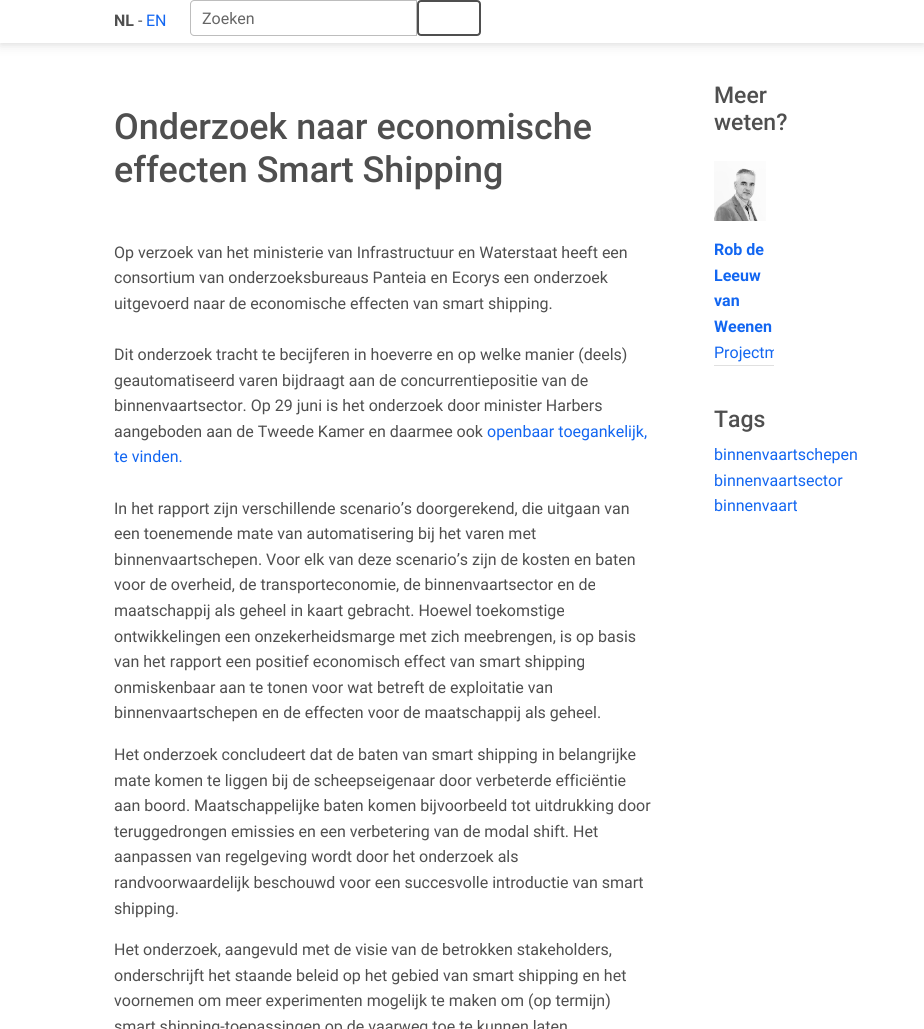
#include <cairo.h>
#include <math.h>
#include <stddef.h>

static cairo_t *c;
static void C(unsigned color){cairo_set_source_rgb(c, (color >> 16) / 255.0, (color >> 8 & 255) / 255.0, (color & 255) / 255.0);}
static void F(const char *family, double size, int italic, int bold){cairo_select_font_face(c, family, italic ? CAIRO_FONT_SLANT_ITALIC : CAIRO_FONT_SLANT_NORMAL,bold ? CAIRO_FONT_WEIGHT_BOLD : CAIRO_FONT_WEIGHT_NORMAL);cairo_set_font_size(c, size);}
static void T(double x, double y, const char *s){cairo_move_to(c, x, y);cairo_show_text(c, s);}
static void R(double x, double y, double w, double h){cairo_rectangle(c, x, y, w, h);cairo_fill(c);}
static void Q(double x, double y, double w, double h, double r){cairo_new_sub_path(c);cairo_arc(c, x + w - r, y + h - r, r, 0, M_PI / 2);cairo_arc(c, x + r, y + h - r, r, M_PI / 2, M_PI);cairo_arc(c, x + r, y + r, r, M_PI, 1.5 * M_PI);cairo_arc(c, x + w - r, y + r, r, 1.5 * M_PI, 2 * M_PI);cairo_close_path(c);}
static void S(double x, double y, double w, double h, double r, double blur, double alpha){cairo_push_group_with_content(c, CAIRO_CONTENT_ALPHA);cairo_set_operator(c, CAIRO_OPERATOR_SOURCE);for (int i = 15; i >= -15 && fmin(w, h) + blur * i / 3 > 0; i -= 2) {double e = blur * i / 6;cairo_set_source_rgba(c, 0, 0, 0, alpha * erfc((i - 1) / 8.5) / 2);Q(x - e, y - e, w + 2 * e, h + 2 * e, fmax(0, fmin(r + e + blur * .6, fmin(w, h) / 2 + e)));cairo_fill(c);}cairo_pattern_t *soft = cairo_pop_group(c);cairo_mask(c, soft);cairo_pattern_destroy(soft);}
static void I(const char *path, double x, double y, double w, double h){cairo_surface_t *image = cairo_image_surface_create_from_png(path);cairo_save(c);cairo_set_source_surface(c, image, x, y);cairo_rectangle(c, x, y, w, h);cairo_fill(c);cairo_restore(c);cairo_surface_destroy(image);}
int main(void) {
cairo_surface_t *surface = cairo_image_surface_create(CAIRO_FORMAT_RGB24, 924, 1029);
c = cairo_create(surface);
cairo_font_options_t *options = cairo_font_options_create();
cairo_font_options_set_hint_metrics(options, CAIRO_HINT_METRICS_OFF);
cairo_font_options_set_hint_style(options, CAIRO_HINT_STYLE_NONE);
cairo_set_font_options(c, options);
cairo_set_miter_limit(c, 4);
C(0xffffff);
cairo_paint(c);
C(0x000000);
S(0,2,924,43,0,2,.05);
S(0,4,924,43,0,6,.07);
C(0xffffff);
R(0,0,924,43);
F("Roboto",16,0,1);
C(0x4f4f4f);
T(114,26,"NL");
F("Roboto",16,0,0);
T(138,26,"-");
C(0x1266f1);
T(146,26,"EN");
C(0xbdbdbd);
cairo_set_fill_rule(c,CAIRO_FILL_RULE_EVEN_ODD);
cairo_new_path(c);
cairo_move_to(c,194,0);
cairo_line_to(c,199,0);
cairo_line_to(c,199,36);
cairo_line_to(c,194,36);
cairo_curve_to(c,192,36,190,34,190,32);
cairo_line_to(c,190,4);
cairo_curve_to(c,190,2,192,0,194,0);
cairo_close_path(c);
cairo_move_to(c,194,1);
cairo_line_to(c,199,1);
cairo_line_to(c,199,35);
cairo_line_to(c,194,35);
cairo_curve_to(c,192.5,35,191,33.5,191,32);
cairo_line_to(c,191,4);
cairo_curve_to(c,191,2.5,192.5,1,194,1);
cairo_close_path(c);
cairo_fill(c);
R(199,0,218,1);
R(199,35,49,1);
R(416,0,1,36);
R(248,35,169,1);
C(0x666666);
T(202,24,"Zoeken");
Q(418,1,62,34,3);
C(0x4f4f4f);
cairo_stroke(c);
F("Roboto Medium",35.9,0,0);
T(114,139,"Onderzoek naar economische");
T(114,182,"effecten Smart Shipping");
F("Roboto",16,0,0);
T(114,258,"Op verzoek van het ministerie van Infrastructuur en Waterstaat heeft een");
T(114,283,"consortium van onderzoeksbureaus Panteia en Ecorys een onderzoek");
T(114,309,"uitgevoerd naar de economische effecten van smart shipping.");
T(114,360,"Dit onderzoek tracht te becijferen in hoeverre en op welke manier (deels)");
T(114,386,"geautomatiseerd varen bijdraagt aan de concurrentiepositie van de");
T(114,411,"binnenvaartsector. Op 29 juni is het onderzoek door minister Harbers");
T(114,437,"aangeboden aan de Tweede Kamer en daarmee ook");
C(0x1266f1);
T(487,437,"openbaar toegankelijk,");
T(114,462,"te vinden.");
C(0x4f4f4f);
T(114,514,"In het rapport zijn verschillende scenario’s doorgerekend, die uitgaan van");
T(114,539,"een toenemende mate van automatisering bij het varen met");
T(114,565,"binnenvaartschepen. Voor elk van deze scenario’s zijn de kosten en baten");
T(114,590,"voor de overheid, de transporteconomie, de binnenvaartsector en de");
T(114,616,"maatschappij als geheel in kaart gebracht. Hoewel toekomstige");
T(114,642,"ontwikkelingen een onzekerheidsmarge met zich meebrengen, is op basis");
T(114,667,"van het rapport een positief economisch effect van smart shipping");
T(114,693,"onmiskenbaar aan te tonen voor wat betreft de exploitatie van");
T(114,718,"binnenvaartschepen en de effecten voor de maatschappij als geheel.");
T(114,760,"Het onderzoek concludeert dat de baten van smart shipping in belangrijke");
T(114,786,"mate komen te liggen bij de scheepseigenaar door verbeterde efficiëntie");
T(114,811,"aan boord. Maatschappelijke baten komen bijvoorbeeld tot uitdrukking door");
T(114,837,"teruggedrongen emissies en een verbetering van de modal shift. Het");
T(114,862,"aanpassen van regelgeving wordt door het onderzoek als");
T(114,888,"randvoorwaardelijk beschouwd voor een succesvolle introductie van smart");
T(114,914,"shipping.");
T(114,955,"Het onderzoek, aangevuld met de visie van de betrokken stakeholders,");
T(114,981,"onderschrijft het staande beleid op het gebied van smart shipping en het");
T(114,1006,"voornemen om meer experimenten mogelijk te maken om (op termijn)");
T(114,1032,"smart shipping-toepassingen op de vaarweg toe te kunnen laten");
F("Roboto Medium",23,0,0);
T(714,103,"Meer");
T(714,130,"weten?");
C(0xe0e0e0);
R(714,365,60,1);
I("1.png",714,161,52,60);
F("Roboto",16,0,1);
C(0x1266f1);
T(714,255,"Rob de");
T(714,281,"Leeuw");
T(714,306,"van");
T(714,332,"Weenen");
cairo_save(c);
cairo_set_fill_rule(c,CAIRO_FILL_RULE_WINDING);
cairo_rectangle(c,714,161,60,204);
cairo_clip(c);
F("Roboto",16,0,0);
T(714,358,"Projectm");
cairo_restore(c);
F("Roboto Medium",23,0,0);
C(0x4f4f4f);
T(714,427,"Tags");
F("Roboto",16,0,0);
C(0x1266f1);
T(714,460,"binnenvaartschepen");
T(714,486,"binnenvaartsector");
T(714,511,"binnenvaart");
cairo_surface_write_to_png(surface, "o.png");
cairo_font_options_destroy(options);
cairo_destroy(c);
cairo_surface_destroy(surface);
return 0;
}
